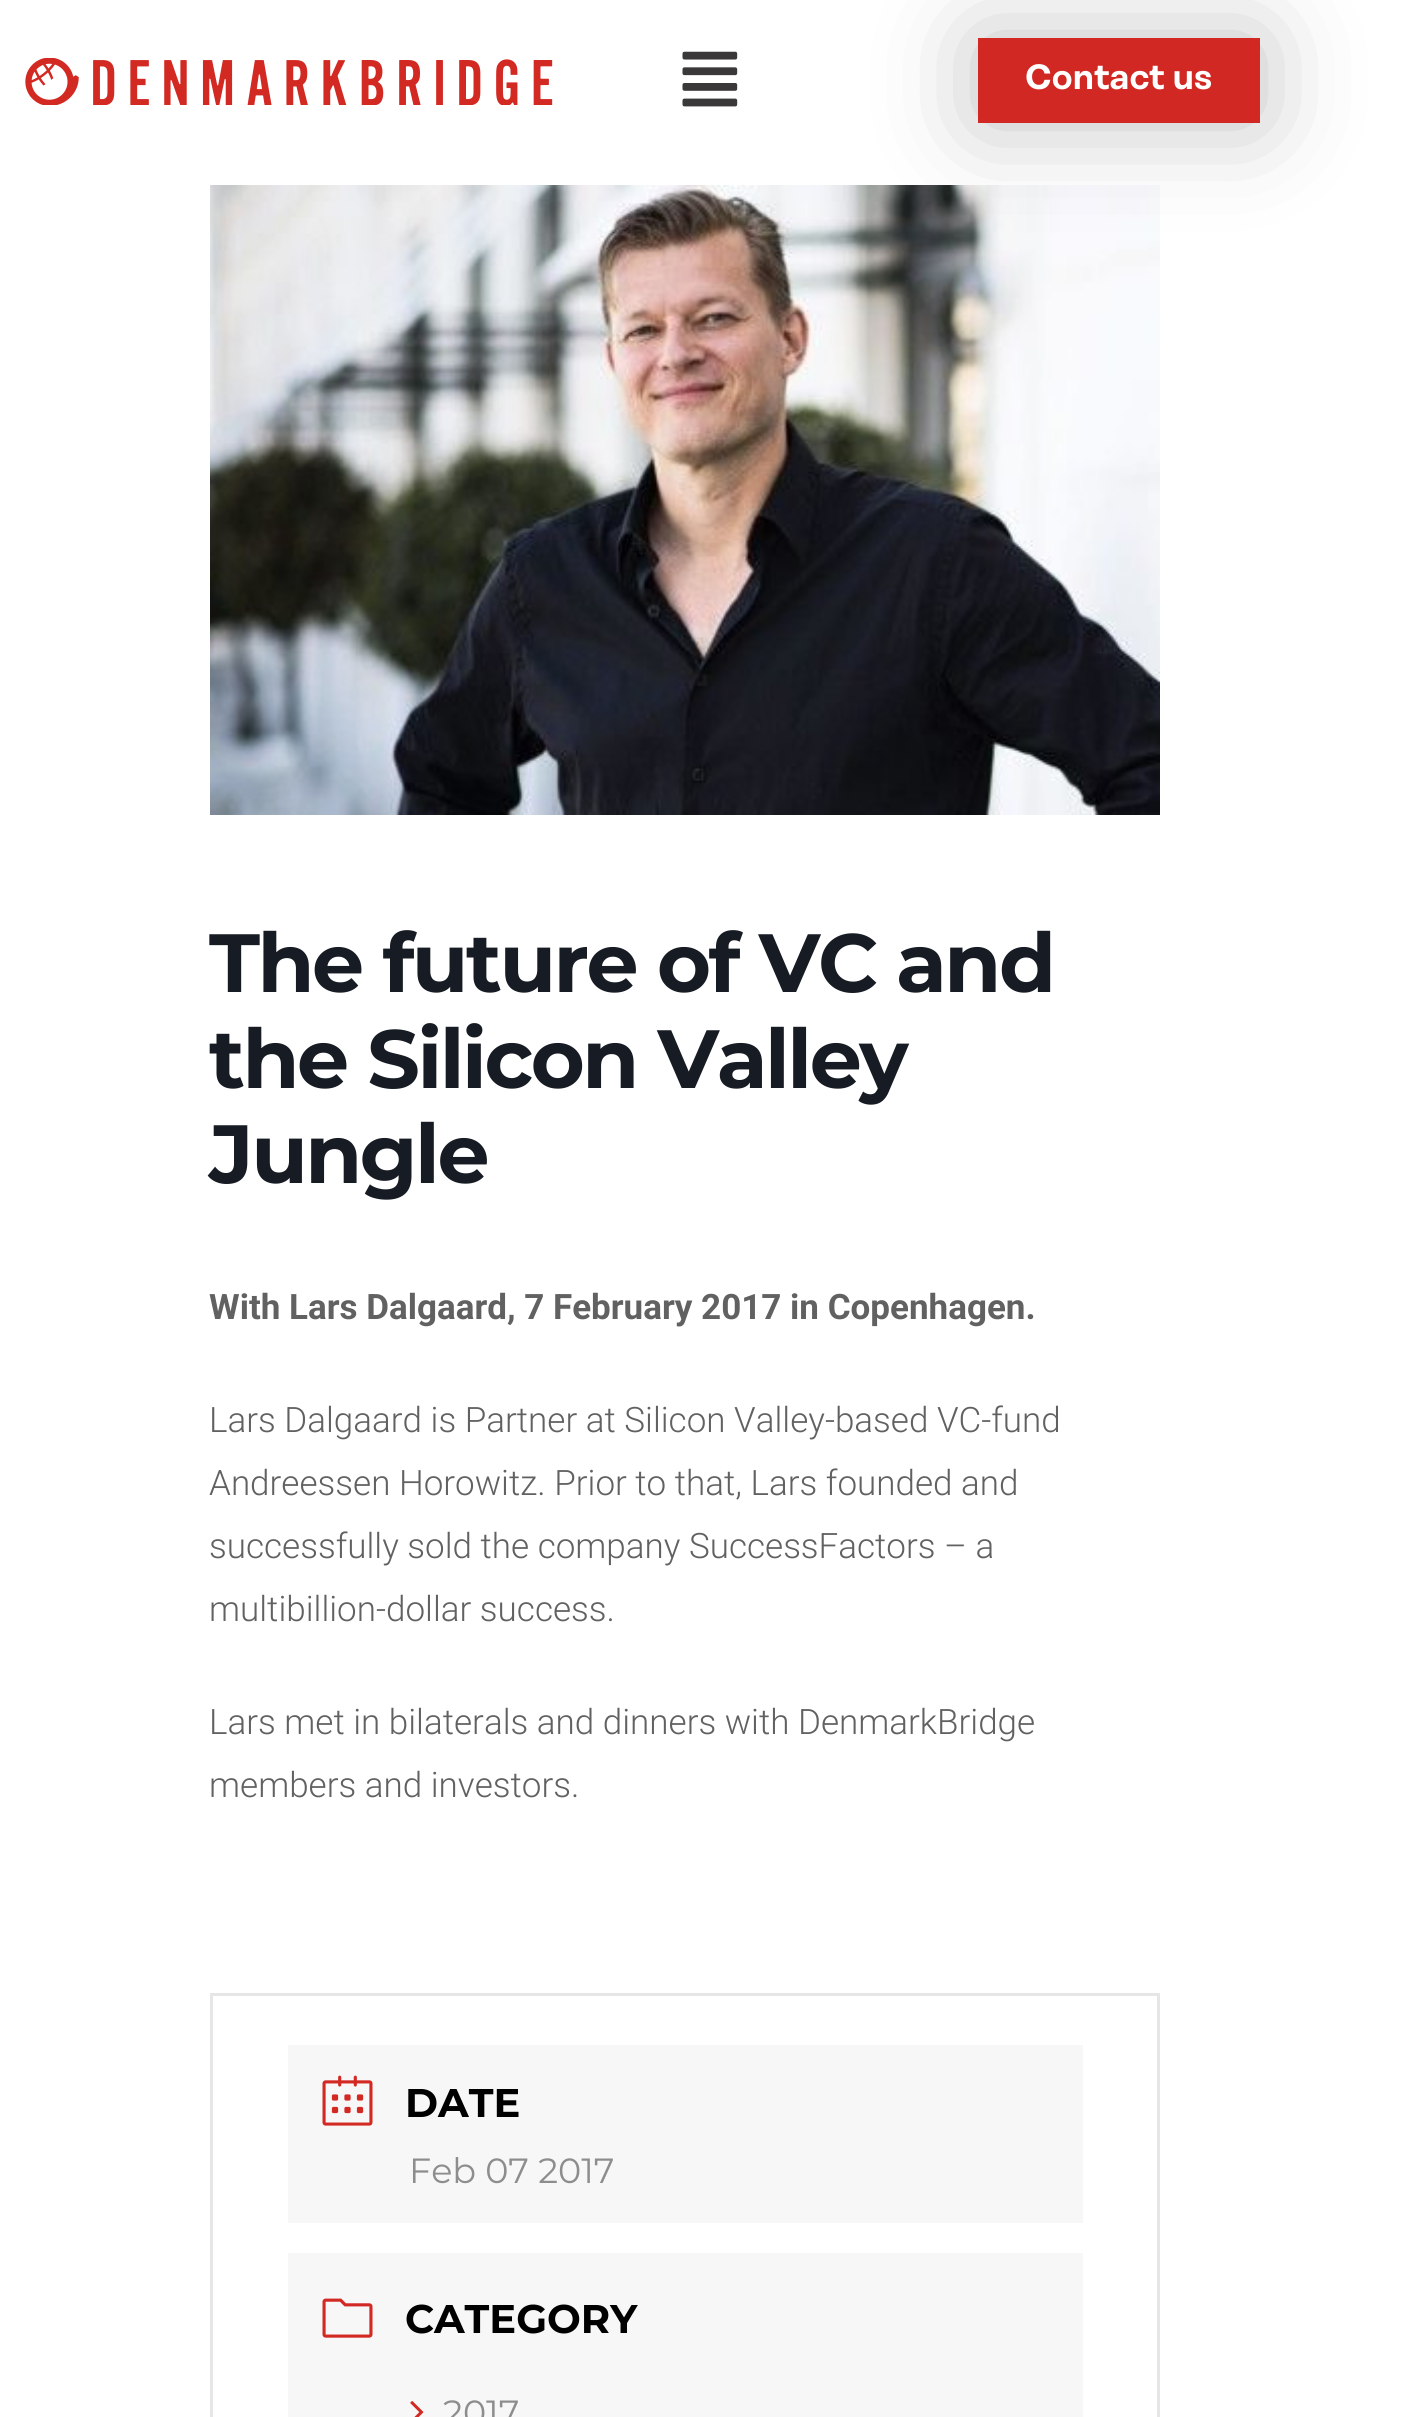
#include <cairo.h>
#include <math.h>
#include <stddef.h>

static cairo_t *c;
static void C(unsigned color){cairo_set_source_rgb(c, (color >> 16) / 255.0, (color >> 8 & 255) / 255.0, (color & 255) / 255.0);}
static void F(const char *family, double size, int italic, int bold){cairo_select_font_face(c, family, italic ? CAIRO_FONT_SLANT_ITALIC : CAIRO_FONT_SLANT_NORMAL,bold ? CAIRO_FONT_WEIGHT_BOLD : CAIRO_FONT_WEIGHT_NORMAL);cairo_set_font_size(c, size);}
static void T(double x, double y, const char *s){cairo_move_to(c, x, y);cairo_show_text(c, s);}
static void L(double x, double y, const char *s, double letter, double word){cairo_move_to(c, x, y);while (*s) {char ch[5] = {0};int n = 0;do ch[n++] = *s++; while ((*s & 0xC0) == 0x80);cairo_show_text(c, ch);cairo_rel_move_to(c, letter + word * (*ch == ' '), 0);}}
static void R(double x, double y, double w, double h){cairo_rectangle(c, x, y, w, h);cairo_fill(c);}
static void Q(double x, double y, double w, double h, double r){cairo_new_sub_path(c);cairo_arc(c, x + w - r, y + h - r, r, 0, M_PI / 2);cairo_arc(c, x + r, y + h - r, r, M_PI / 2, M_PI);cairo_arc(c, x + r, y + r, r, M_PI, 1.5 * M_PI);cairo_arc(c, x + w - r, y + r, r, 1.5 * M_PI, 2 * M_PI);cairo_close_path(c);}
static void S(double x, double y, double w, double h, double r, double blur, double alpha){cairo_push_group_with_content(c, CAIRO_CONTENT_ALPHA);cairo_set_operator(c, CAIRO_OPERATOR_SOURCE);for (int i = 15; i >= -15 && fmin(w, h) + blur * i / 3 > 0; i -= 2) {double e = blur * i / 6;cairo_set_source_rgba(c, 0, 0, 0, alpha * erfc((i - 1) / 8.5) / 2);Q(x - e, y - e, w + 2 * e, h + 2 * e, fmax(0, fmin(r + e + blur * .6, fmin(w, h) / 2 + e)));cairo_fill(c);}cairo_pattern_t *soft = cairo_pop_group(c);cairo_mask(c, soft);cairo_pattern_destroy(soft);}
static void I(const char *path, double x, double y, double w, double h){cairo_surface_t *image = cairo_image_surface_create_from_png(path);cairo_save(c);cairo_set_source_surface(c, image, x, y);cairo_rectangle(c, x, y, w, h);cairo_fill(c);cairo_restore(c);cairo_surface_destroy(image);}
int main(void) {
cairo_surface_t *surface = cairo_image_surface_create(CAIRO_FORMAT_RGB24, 1416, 2417);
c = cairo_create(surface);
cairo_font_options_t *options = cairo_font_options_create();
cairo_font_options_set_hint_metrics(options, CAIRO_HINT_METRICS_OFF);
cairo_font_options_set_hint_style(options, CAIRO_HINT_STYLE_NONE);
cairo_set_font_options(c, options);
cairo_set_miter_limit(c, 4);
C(0xffffff);
cairo_paint(c);
I("1.png",25,58,528,47);
I("2.png",682,51,56,56);
I("3.png",210,185,950,630);
C(0x000000);
S(978,38,282,85,0,50,.25);
C(0xd22823);
R(978,38,282,85);
F("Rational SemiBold",35,0,0);
C(0xffffff);
T(1025,89,"Contact us");
F("Montserrat",82.5,0,1);
C(0x171c24);
L(209,992,"The future of VC and",-2.5,0);
L(209,1088,"the Silicon Valley",-2.5,0);
L(209,1183,"Jungle",-2.5,0);
F("Roboto",35,0,1);
C(0x616161);
T(209,1319,"With Lars Dalgaard, 7 February 2017 in Copenhagen.");
F("Roboto Light",35,0,0);
T(209,1432,"Lars Dalgaard is Partner at Silicon Valley-based VC-fund");
T(209,1495,"Andreessen Horowitz. Prior to that, Lars founded and");
T(209,1558,"successfully sold the company SuccessFactors – a");
T(209,1621,"multibillion-dollar success.");
T(209,1734,"Lars met in bilaterals and dinners with DenmarkBridge");
T(209,1797,"members and investors.");
cairo_rectangle(c,211.5,1994.5,947,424);
C(0xe6e6e6);
cairo_set_line_width(c,3);
cairo_stroke(c);
C(0xf7f7f7);
R(288,2045,795,178);
I("4.png",322,2075,51,51);
F("Montserrat",40,0,1);
C(0x000000);
T(405,2117,"DATE");
F("Montserrat",35,0,0);
C(0x8d8d8d);
T(409,2183,"Feb 07 2017");
C(0xf7f7f7);
R(288,2253,795,164);
I("5.png",322,2298,51,40);
F("Montserrat",40,0,1);
C(0x000000);
T(405,2333,"CATEGORY");
I("6.png",410,2401,14,16);
F("Montserrat",35,0,0);
C(0x8d8d8d);
T(443,2425,"2017");
cairo_surface_write_to_png(surface, "o.png");
cairo_font_options_destroy(options);
cairo_destroy(c);
cairo_surface_destroy(surface);
return 0;
}
